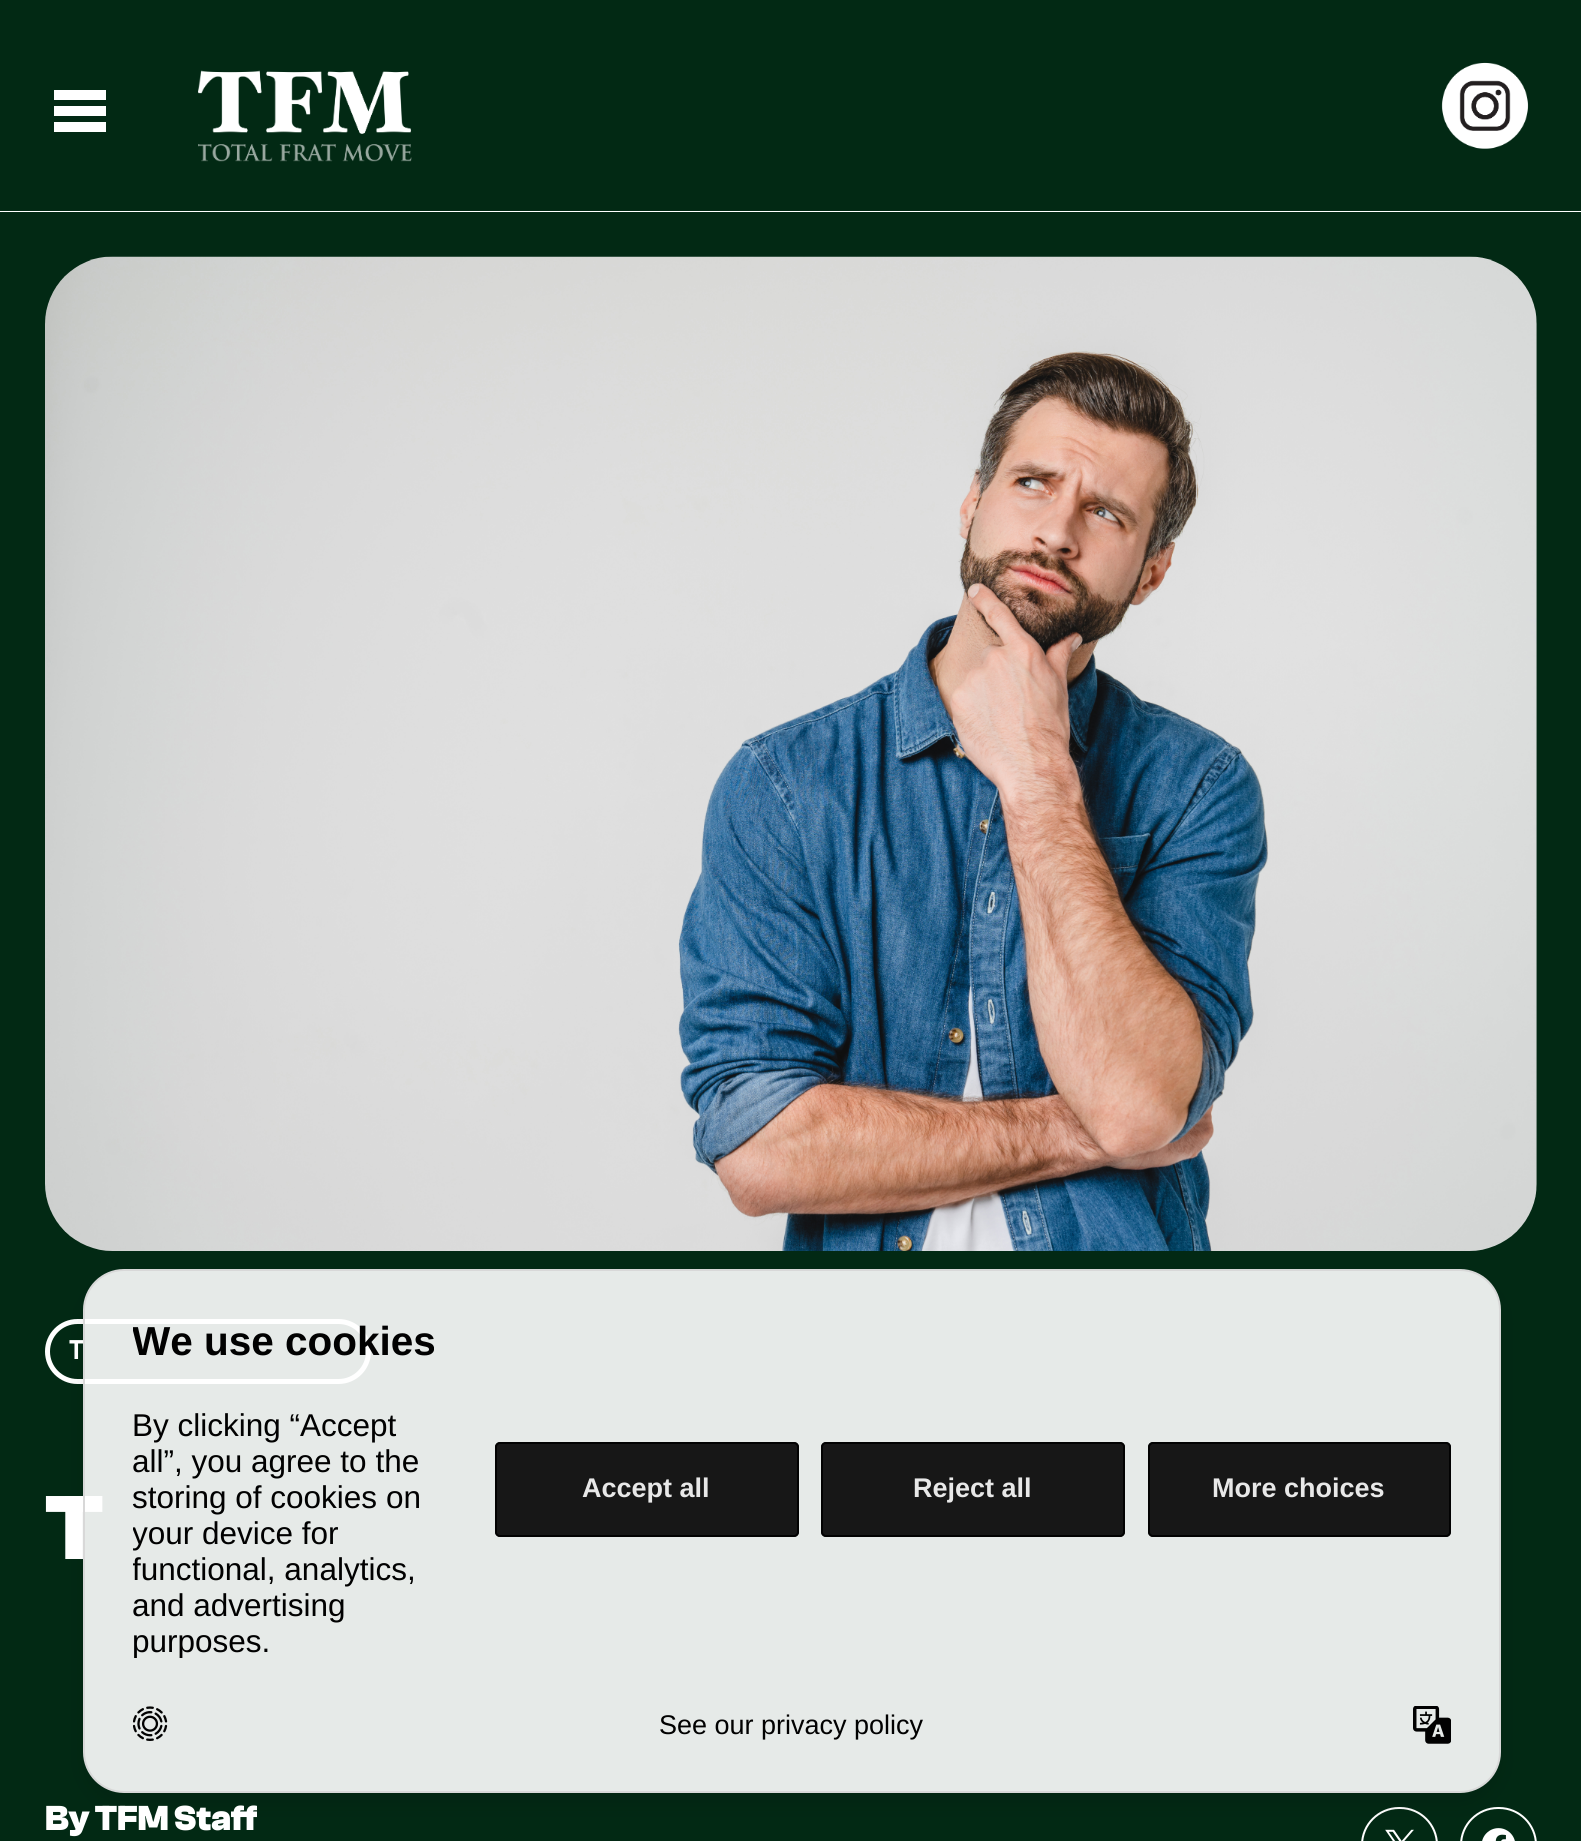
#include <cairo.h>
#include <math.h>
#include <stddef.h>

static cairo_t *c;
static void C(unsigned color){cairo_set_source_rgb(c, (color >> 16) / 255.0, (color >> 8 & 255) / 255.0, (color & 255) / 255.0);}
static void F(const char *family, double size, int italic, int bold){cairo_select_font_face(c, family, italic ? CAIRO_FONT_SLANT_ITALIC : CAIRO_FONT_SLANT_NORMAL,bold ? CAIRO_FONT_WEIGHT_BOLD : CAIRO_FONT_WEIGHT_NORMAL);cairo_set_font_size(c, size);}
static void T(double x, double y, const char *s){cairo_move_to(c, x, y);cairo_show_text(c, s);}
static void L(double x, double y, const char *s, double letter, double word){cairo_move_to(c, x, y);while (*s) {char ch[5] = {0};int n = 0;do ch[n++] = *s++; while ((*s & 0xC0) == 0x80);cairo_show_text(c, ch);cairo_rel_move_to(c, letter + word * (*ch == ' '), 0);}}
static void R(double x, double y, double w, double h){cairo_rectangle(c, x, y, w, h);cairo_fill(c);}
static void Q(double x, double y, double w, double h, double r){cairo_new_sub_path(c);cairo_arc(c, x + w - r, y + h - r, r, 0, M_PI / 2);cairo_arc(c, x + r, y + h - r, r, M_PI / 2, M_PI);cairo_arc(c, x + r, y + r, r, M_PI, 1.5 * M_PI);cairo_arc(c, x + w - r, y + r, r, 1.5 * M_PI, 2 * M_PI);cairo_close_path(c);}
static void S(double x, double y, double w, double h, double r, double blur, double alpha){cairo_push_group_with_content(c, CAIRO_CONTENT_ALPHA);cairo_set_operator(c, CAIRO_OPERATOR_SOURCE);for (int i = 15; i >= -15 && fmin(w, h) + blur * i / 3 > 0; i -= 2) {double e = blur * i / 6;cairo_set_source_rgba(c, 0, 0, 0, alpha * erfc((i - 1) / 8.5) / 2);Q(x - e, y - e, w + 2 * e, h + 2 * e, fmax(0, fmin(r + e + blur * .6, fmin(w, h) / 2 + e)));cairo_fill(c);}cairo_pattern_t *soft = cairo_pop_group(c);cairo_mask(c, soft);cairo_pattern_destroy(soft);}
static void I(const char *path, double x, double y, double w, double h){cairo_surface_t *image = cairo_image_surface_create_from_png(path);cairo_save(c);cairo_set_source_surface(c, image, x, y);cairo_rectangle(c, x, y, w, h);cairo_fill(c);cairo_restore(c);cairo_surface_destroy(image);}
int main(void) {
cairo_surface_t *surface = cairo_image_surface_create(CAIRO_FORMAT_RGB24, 1581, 1841);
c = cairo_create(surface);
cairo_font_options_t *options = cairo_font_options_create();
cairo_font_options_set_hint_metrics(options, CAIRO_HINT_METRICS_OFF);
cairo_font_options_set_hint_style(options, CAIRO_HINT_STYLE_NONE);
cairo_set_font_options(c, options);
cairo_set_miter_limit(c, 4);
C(0xffffff);
cairo_paint(c);
C(0x022914);
R(0,212,1581,1629);
I("5.png",45,256,1492,995);
Q(47.5,1321.5,321,60,30);
C(0xffffff);
cairo_set_line_width(c,5);
cairo_stroke(c);
Q(1362,1808,75,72,37);
cairo_set_line_width(c,2);
cairo_stroke(c);
I("6.png",1385,1829,29,12);
Q(1461,1808,75,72,37);
cairo_stroke(c);
I("7.png",1482,1828,33,13);
cairo_save(c);
cairo_set_fill_rule(c,CAIRO_FILL_RULE_EVEN_ODD);
cairo_new_path(c);
cairo_move_to(c,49,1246);
cairo_line_to(c,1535,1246);
cairo_line_to(c,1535,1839);
cairo_line_to(c,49,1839);
cairo_close_path(c);
cairo_move_to(c,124,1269);
cairo_line_to(c,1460,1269);
cairo_curve_to(c,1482.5,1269,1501,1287.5,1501,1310);
cairo_line_to(c,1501,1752);
cairo_curve_to(c,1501,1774.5,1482.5,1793,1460,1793);
cairo_line_to(c,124,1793);
cairo_curve_to(c,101.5,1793,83,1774.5,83,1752);
cairo_line_to(c,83,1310);
cairo_curve_to(c,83,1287.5,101.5,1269,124,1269);
cairo_close_path(c);
cairo_clip(c);
C(0x000000);
S(83,1280,1418,525,41,11,.1);
cairo_restore(c);
F("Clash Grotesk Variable",94,1,1);
T(45,1559,"T");
cairo_set_source_rgba(c,1,1,1,0.9);
Q(84,1270,1416,522,40);
cairo_fill_preserve(c);
C(0xd8d8d8);
cairo_stroke(c);
cairo_save(c);
cairo_rectangle(c,133,1319,1318,339);
cairo_clip(c);
F("Liberation Sans",40.5,0,1);
C(0x010101);
T(132,1355,"We use cookies");
cairo_restore(c);
F("Liberation Sans",31.5,0,0);
C(0x010101);
T(132,1436,"By clicking “Accept");
T(132,1472,"all”, you agree to the");
T(132,1508,"storing of cookies on");
cairo_save(c);
cairo_rectangle(c,133,1319,1318,339);
cairo_clip(c);
T(132,1544,"your device for");
T(132,1580,"functional, analytics,");
cairo_restore(c);
T(132,1616,"and advertising");
cairo_save(c);
cairo_rectangle(c,133,1319,1318,339);
cairo_clip(c);
T(132,1652,"purposes.");
cairo_restore(c);
cairo_set_source_rgba(c,0,0,0,0.9);
Q(495,1442,304,95,5);
cairo_fill(c);
Q(496,1443,302,93,4);
cairo_stroke(c);
F("Liberation Sans",27,0,1);
C(0xe8e8e8);
T(582,1497,"Accept all");
cairo_set_source_rgba(c,0,0,0,0.9);
Q(821,1442,304,95,5);
cairo_fill(c);
Q(822,1443,302,93,4);
cairo_stroke(c);
C(0xe8e8e8);
T(913,1497,"Reject all");
cairo_set_source_rgba(c,0,0,0,0.9);
Q(1148,1442,303,95,5);
cairo_fill(c);
Q(1149,1443,301,93,4);
cairo_stroke(c);
C(0xe8e8e8);
T(1212,1497,"More choices");
I("1.png",133,1706,35,35);
F("Liberation Sans",27,0,0);
C(0x010101);
T(659,1734,"See our privacy policy");
I("2.png",1413,1706,38,38);
C(0x022914);
R(0,0,1581,211);
C(0xffffff);
cairo_new_path(c);
cairo_move_to(c,54,90);
cairo_line_to(c,106,90);
cairo_line_to(c,106,100);
cairo_line_to(c,54,100);
cairo_close_path(c);
cairo_move_to(c,54,106);
cairo_line_to(c,106,106);
cairo_line_to(c,106,116);
cairo_line_to(c,54,116);
cairo_close_path(c);
cairo_move_to(c,54,122);
cairo_line_to(c,106,122);
cairo_line_to(c,106,132);
cairo_line_to(c,54,132);
cairo_close_path(c);
cairo_fill(c);
I("3.png",198,70,214,92);
I("4.png",1441,62,88,87);
F("Space Mono",27,0,1);
L(68,1359,"T",2,0);
F("Clash Grotesk Variable",36,1,1);
T(45,1830,"By TFM Staff");
cairo_surface_write_to_png(surface, "o.png");
cairo_font_options_destroy(options);
cairo_destroy(c);
cairo_surface_destroy(surface);
return 0;
}
